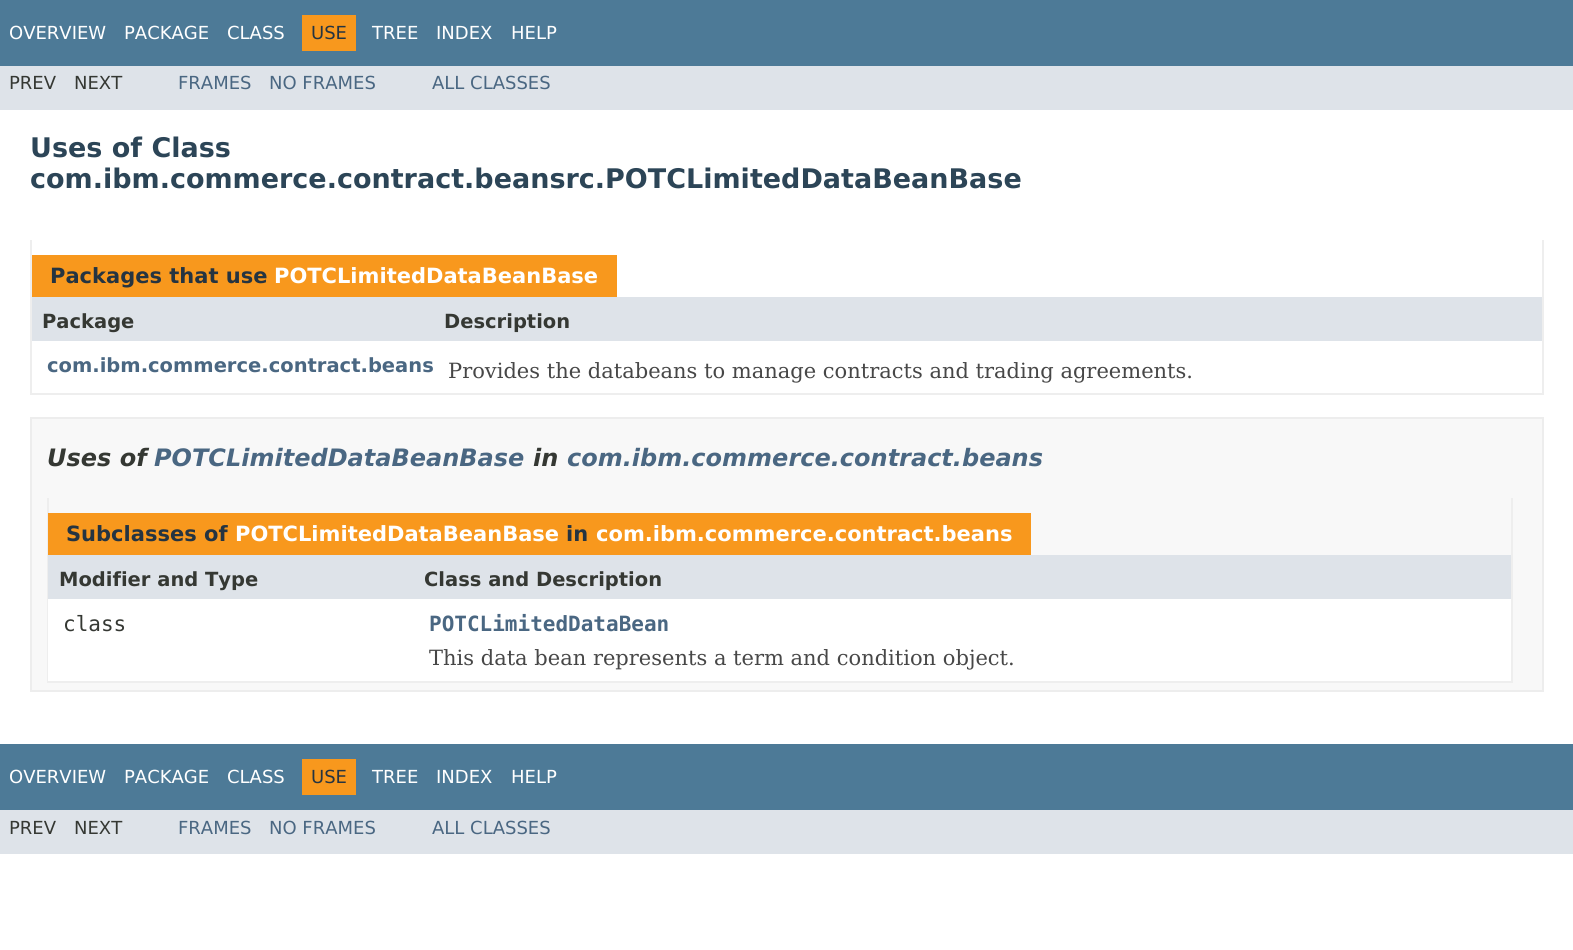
#include <cairo.h>
#include <math.h>
#include <stddef.h>

static cairo_t *c;
static void C(unsigned color){cairo_set_source_rgb(c, (color >> 16) / 255.0, (color >> 8 & 255) / 255.0, (color & 255) / 255.0);}
static void F(const char *family, double size, int italic, int bold){cairo_select_font_face(c, family, italic ? CAIRO_FONT_SLANT_ITALIC : CAIRO_FONT_SLANT_NORMAL,bold ? CAIRO_FONT_WEIGHT_BOLD : CAIRO_FONT_WEIGHT_NORMAL);cairo_set_font_size(c, size);}
static void T(double x, double y, const char *s){cairo_move_to(c, x, y);cairo_show_text(c, s);}
static void R(double x, double y, double w, double h){cairo_rectangle(c, x, y, w, h);cairo_fill(c);}
int main(void) {
cairo_surface_t *surface = cairo_image_surface_create(CAIRO_FORMAT_RGB24, 1573, 950);
c = cairo_create(surface);
cairo_font_options_t *options = cairo_font_options_create();
cairo_font_options_set_hint_metrics(options, CAIRO_HINT_METRICS_OFF);
cairo_font_options_set_hint_style(options, CAIRO_HINT_STYLE_NONE);
cairo_set_font_options(c, options);
cairo_set_miter_limit(c, 4);
C(0xffffff);
cairo_paint(c);
C(0x4d7a97);
R(0,0,1573,66);
F("DejaVu Sans",18,0,0);
C(0xffffff);
T(9,39,"OVERVIEW");
T(124,39,"PACKAGE");
T(227,39,"CLASS");
C(0xf8981d);
R(302,15,54,36);
C(0x253441);
T(311,39,"USE");
C(0xffffff);
T(372,39,"TREE");
T(436,39,"INDEX");
T(511,39,"HELP");
C(0xdee3e9);
R(0,66,1573,44);
C(0x353833);
T(9,89,"PREV");
T(74,89,"NEXT");
C(0x4a6782);
T(178,89,"FRAMES");
T(269,89,"NO FRAMES");
T(432,89,"ALL CLASSES");
F("DejaVu Sans",27,0,1);
C(0x2c4557);
T(30,157,"Uses of Class");
T(30,188,"com.ibm.commerce.contract.beansrc.POTCLimitedDataBeanBase");
C(0xeeeeee);
R(1542,240,2,155);
R(30,393,1514,2);
R(30,240,2,155);
C(0xf8981d);
R(32,255,585,42);
F("DejaVu Sans",21,0,1);
C(0x253441);
T(50,283,"Packages that use");
C(0xffffff);
T(274,283,"POTCLimitedDataBeanBase");
C(0xdee3e9);
R(32,297,1510,44);
F("DejaVu Sans",19.5,0,1);
C(0x353833);
T(42,328,"Package");
T(444,328,"Description");
C(0x4a6782);
T(47,372,"com.ibm.commerce.contract.beans");
F("DejaVu Serif",21,0,0);
C(0x474747);
T(448,378,"Provides the databeans to manage contracts and trading agreements.");
C(0xf8f8f8);
cairo_rectangle(c,31,418,1512,273);
cairo_fill_preserve(c);
C(0xededed);
cairo_stroke(c);
F("DejaVu Sans",24,1,1);
C(0x353833);
T(47,466,"Uses of");
C(0x4a6782);
T(154,466,"POTCLimitedDataBeanBase");
C(0x353833);
T(533,466,"in");
C(0x4a6782);
T(567,466,"com.ibm.commerce.contract.beans");
C(0xeeeeee);
R(1511,498,2,185);
R(47,681,1465,2);
R(47,498,2,185);
C(0xf8981d);
R(48,513,983,42);
F("DejaVu Sans",21,0,1);
C(0x253441);
T(66,541,"Subclasses of");
C(0xffffff);
T(235,541,"POTCLimitedDataBeanBase");
C(0x253441);
T(566,541,"in");
C(0xffffff);
T(596,541,"com.ibm.commerce.contract.beans");
C(0xdee3e9);
R(48,555,1463,44);
F("DejaVu Sans",19.5,0,1);
C(0x353833);
T(59,586,"Modifier and Type");
T(424,586,"Class and Description");
C(0xffffff);
R(48,599,1463,82);
F("DejaVu Sans Mono",21,0,0);
C(0x353833);
T(63,631,"class");
F("DejaVu Sans Mono",21,0,1);
C(0x4a6782);
T(429,631,"POTCLimitedDataBean");
F("DejaVu Serif",21,0,0);
C(0x474747);
T(429,665,"This data bean represents a term and condition object.");
C(0x4d7a97);
R(0,744,1573,66);
F("DejaVu Sans",18,0,0);
C(0xffffff);
T(9,783,"OVERVIEW");
T(124,783,"PACKAGE");
T(227,783,"CLASS");
C(0xf8981d);
R(302,759,54,36);
C(0x253441);
T(311,783,"USE");
C(0xffffff);
T(372,783,"TREE");
T(436,783,"INDEX");
T(511,783,"HELP");
C(0xdee3e9);
R(0,810,1573,44);
C(0x353833);
T(9,834,"PREV");
T(74,834,"NEXT");
C(0x4a6782);
T(178,834,"FRAMES");
T(269,834,"NO FRAMES");
T(432,834,"ALL CLASSES");
cairo_surface_write_to_png(surface, "o.png");
cairo_font_options_destroy(options);
cairo_destroy(c);
cairo_surface_destroy(surface);
return 0;
}
